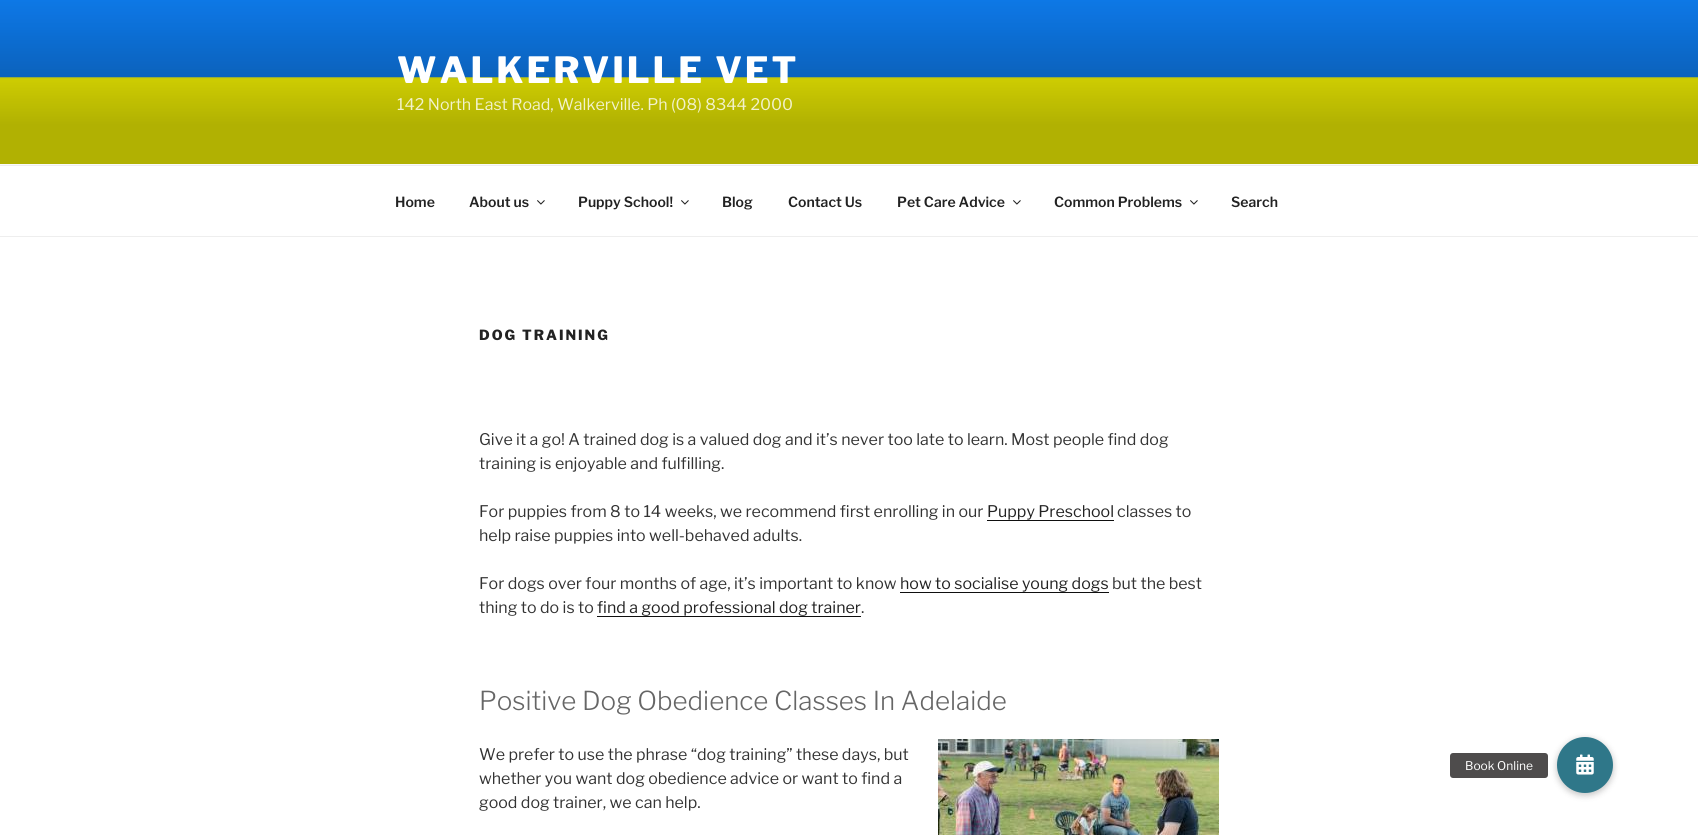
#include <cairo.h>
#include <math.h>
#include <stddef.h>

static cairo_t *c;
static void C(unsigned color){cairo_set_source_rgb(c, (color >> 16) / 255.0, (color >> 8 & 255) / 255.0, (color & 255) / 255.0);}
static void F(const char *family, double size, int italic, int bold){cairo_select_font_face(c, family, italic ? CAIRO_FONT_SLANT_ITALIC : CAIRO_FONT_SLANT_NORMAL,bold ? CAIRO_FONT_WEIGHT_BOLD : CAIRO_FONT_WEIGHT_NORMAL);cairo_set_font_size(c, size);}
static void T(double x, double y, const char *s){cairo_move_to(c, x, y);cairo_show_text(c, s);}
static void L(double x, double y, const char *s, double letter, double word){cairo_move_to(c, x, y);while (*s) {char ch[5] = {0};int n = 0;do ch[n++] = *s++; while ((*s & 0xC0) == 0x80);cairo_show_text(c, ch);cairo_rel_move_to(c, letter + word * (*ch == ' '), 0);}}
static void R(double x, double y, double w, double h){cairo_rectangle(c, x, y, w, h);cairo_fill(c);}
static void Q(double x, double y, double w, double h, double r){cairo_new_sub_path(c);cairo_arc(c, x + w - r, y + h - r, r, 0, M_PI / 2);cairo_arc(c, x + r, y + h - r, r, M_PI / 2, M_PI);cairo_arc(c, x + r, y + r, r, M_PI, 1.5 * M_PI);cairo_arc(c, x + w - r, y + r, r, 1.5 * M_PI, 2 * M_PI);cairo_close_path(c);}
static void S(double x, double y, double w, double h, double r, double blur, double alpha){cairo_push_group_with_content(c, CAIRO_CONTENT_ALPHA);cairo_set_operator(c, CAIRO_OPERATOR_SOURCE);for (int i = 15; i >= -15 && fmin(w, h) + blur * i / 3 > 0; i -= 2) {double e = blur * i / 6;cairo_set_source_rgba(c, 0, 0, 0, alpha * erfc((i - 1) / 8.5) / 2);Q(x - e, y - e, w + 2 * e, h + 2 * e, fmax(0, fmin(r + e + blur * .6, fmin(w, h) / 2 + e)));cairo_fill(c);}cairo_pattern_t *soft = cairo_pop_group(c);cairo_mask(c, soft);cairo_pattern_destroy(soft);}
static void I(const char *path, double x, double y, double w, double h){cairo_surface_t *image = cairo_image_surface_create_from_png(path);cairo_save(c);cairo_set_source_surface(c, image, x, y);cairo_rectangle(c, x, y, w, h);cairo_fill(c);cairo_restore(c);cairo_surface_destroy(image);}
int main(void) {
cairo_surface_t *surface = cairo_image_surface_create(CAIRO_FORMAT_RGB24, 1698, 835);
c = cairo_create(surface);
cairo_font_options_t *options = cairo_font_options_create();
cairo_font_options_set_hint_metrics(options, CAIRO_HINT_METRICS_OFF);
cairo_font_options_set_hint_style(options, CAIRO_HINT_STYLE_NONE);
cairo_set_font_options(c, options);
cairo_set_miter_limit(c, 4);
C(0xffffff);
cairo_paint(c);
C(0xfafafa);
R(0,0,1698,165);
I("1.png",0,0,1698,164);
F("Libre Franklin Thin",36,0,0);
C(0xffffff);
L(397,83,"WALKERVILLE VET",2.9,0);
F("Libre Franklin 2 Thin",16,0,0);
C(0xf2f2cc);
T(397,110,"142 North East Road, Walkerville. Ph (08) 8344 2000");
C(0xeeeeee);
R(0,165,1698,1);
R(0,236,1698,1);
F("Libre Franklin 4 Thin",14,0,0);
C(0x222222);
T(395,207,"Home");
T(469,207,"About us");
I("2.png",537,200,8,5);
T(578,207,"Puppy School!");
I("2.png",681,200,8,5);
T(722,207,"Blog");
T(788,207,"Contact Us");
T(897,207,"Pet Care Advice");
I("2.png",1013,200,8,5);
T(1054,207,"Common Problems");
I("2.png",1190,200,8,5);
T(1231,207,"Search");
F("Libre Franklin Thin",14,0,0);
L(479,340,"DOG TRAINING",2,0);
F("Libre Franklin 2 Thin",16,0,0);
C(0x333333);
T(479,445,"Give it a go! A trained dog is a valued dog and it’s never too late to learn. Most people find dog");
T(479,469,"training is enjoyable and fulfilling.");
T(479,517,"For puppies from 8 to 14 weeks, we recommend first enrolling in our");
C(0x222222);
T(987,517,"Puppy Preschool");
C(0x0f0f0f);
R(987,520,127,1);
C(0x333333);
T(1117,517,"classes to");
T(479,541,"help raise puppies into well-behaved adults.");
T(479,589,"For dogs over four months of age, it’s important to know");
C(0x222222);
T(900,589,"how to socialise young dogs");
C(0x0f0f0f);
R(900,592,209,1);
C(0x333333);
T(1112,589,"but the best");
T(479,613,"thing to do is to");
C(0x222222);
T(597,613,"find a good professional dog trainer");
C(0x0f0f0f);
R(597,616,264,1);
C(0x333333);
T(861,613,".");
F("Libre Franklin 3 Thin",26,0,0);
C(0x666666);
T(479,710,"Positive Dog Obedience Classes In Adelaide");
F("Libre Franklin 2 Thin",16,0,0);
C(0x333333);
T(479,760,"We prefer to use the phrase “dog training” these days, but");
T(479,784,"whether you want dog obedience advice or want to find a");
T(479,808,"good dog trainer, we can help.");
I("3.png",938,739,281,96);
C(0x000000);
S(1556,738,58,58,29,3,.2);
C(0x2f7789);
cairo_arc(c,1585,765,28,0,2 * M_PI);
cairo_fill(c);
C(0x4e4c4c);
Q(1450,753,98,25,3);
cairo_fill(c);
F("Libre Franklin 2 Thin",12,0,0);
C(0xffffff);
T(1465,770,"Book Online");
I("4.png",1576,754,18,21);
cairo_surface_write_to_png(surface, "o.png");
cairo_font_options_destroy(options);
cairo_destroy(c);
cairo_surface_destroy(surface);
return 0;
}
